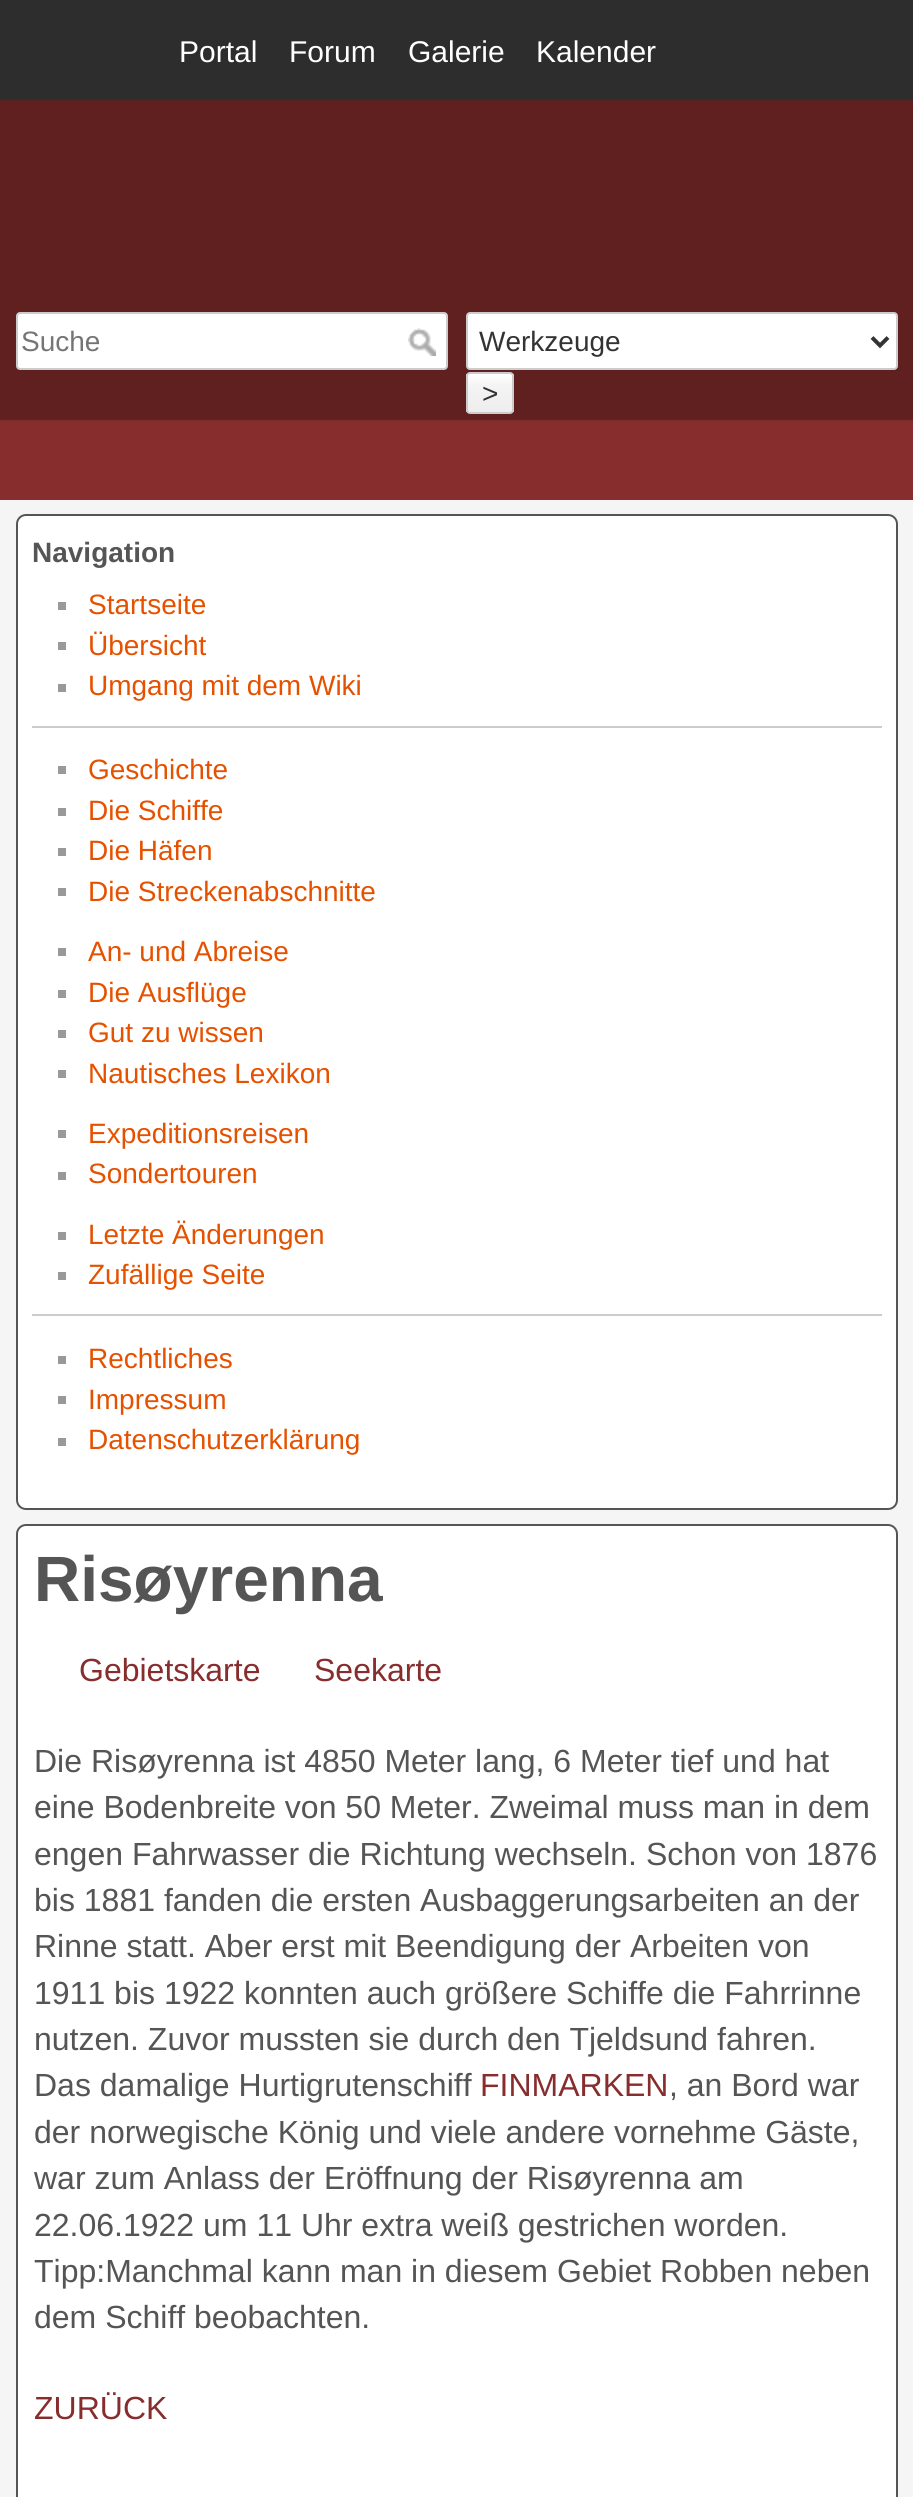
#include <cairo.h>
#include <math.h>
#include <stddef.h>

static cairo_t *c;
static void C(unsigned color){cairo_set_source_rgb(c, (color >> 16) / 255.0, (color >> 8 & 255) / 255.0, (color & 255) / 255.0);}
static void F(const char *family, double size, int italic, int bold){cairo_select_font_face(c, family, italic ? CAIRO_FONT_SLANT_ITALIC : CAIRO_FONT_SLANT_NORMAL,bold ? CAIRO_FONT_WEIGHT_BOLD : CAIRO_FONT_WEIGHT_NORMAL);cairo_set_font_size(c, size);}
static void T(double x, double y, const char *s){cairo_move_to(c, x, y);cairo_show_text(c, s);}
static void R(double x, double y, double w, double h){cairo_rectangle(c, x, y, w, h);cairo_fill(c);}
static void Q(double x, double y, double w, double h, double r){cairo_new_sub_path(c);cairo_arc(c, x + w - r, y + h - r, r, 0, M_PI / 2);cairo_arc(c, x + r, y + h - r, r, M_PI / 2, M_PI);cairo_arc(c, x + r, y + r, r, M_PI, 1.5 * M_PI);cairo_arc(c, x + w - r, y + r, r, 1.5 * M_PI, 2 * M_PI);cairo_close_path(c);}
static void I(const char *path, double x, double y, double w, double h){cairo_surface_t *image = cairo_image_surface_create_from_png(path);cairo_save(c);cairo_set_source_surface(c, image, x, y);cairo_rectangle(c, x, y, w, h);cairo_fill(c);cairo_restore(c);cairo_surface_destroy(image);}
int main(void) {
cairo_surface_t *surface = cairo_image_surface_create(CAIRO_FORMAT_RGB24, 913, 2497);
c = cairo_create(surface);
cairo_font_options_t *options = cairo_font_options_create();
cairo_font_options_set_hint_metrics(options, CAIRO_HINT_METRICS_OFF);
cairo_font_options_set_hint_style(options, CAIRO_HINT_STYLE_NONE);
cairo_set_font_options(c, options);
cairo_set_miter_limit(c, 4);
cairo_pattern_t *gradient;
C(0xf5f5f5);
cairo_paint(c);
I("1.png",0,0,913,500);
F("Liberation Sans",30,0,0);
C(0xffffff);
T(179,62,"Portal");
T(289,62,"Forum");
T(408,62,"Galerie");
T(536,62,"Kalender");
Q(17,313,430,56,3);
cairo_fill_preserve(c);
C(0xcccccc);
cairo_stroke(c);
F("Liberation Sans",28,0,0);
C(0x757575);
T(21,351,"Suche");
I("2.png",408,328,28,28);
C(0xffffff);
Q(467,313,430,56,3);
cairo_fill_preserve(c);
C(0xcccccc);
cairo_stroke(c);
cairo_new_path(c);
cairo_move_to(c,872,337.5);
cairo_line_to(c,880,345.5);
cairo_line_to(c,888,337.5);
C(0x333333);
cairo_set_line_width(c,4);
cairo_stroke(c);
T(479,351,"Werkzeuge");
cairo_save(c);
Q(466,372,48,42,4);
cairo_clip(c);
gradient = cairo_pattern_create_linear(490,374,490,412);
cairo_pattern_add_color_stop_rgba(gradient,0,1,1,1,1);
cairo_pattern_add_color_stop_rgba(gradient,.3,0.957,0.957,0.957,1);
cairo_pattern_add_color_stop_rgba(gradient,.99,0.933,0.933,0.933,1);
cairo_pattern_add_color_stop_rgba(gradient,.99,0.8,0.8,0.8,1);
cairo_set_source(c,gradient);
cairo_pattern_destroy(gradient);
R(466,374,48,38);
cairo_restore(c);
Q(467,373,46,40,3);
C(0xcccccc);
cairo_set_line_width(c,2);
cairo_stroke(c);
C(0x333333);
T(482,403,">");
C(0xffffff);
Q(17,515,880,994,9);
cairo_fill_preserve(c);
C(0x555555);
cairo_stroke(c);
F("Liberation Sans",28,0,1);
T(32,562,"Navigation");
C(0x999999);
R(58,602,8,8);
F("Liberation Sans",28,0,0);
C(0xe65100);
T(88,614,"Startseite");
C(0x999999);
R(58,642,8,8);
C(0xe65100);
T(88,655,"Übersicht");
C(0x999999);
R(58,684,8,8);
C(0xe65100);
T(88,695,"Umgang mit dem Wiki");
C(0xcccccc);
R(32,726,850,2);
C(0x999999);
R(58,766,8,8);
C(0xe65100);
T(88,779,"Geschichte");
C(0x999999);
R(58,808,8,8);
C(0xe65100);
T(88,820,"Die Schiffe");
C(0x999999);
R(58,848,8,8);
C(0xe65100);
T(88,860,"Die Häfen");
C(0x999999);
R(58,888,8,8);
C(0xe65100);
T(88,901,"Die Streckenabschnitte");
C(0x999999);
R(58,948,8,8);
C(0xe65100);
T(88,961,"An- und Abreise");
C(0x999999);
R(58,990,8,8);
C(0xe65100);
T(88,1002,"Die Ausflüge");
C(0x999999);
R(58,1030,8,8);
C(0xe65100);
T(88,1042,"Gut zu wissen");
C(0x999999);
R(58,1070,8,8);
C(0xe65100);
T(88,1083,"Nautisches Lexikon");
C(0x999999);
R(58,1130,8,8);
C(0xe65100);
T(88,1143,"Expeditionsreisen");
C(0x999999);
R(58,1172,8,8);
C(0xe65100);
T(88,1183,"Sondertouren");
C(0x999999);
R(58,1232,8,8);
C(0xe65100);
T(88,1244,"Letzte Änderungen");
C(0x999999);
R(58,1272,8,8);
C(0xe65100);
T(88,1284,"Zufällige Seite");
C(0xcccccc);
R(32,1314,850,2);
C(0x999999);
R(58,1356,8,8);
C(0xe65100);
T(88,1368,"Rechtliches");
C(0x999999);
R(58,1396,8,8);
C(0xe65100);
T(88,1409,"Impressum");
C(0x999999);
R(58,1438,8,8);
C(0xe65100);
T(88,1449,"Datenschutzerklärung");
C(0xffffff);
Q(17,1525,880,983,9);
cairo_fill_preserve(c);
C(0x555555);
cairo_stroke(c);
F("Liberation Sans",64,0,1);
T(34,1601,"Risøyrenna");
F("Liberation Sans",32,0,0);
C(0x872d2d);
T(79,1681,"Gebietskarte");
T(314,1681,"Seekarte");
C(0x555555);
T(34,1772,"Die Risøyrenna ist 4850 Meter lang, 6 Meter tief und hat");
T(34,1818,"eine Bodenbreite von 50 Meter. Zweimal muss man in dem");
T(34,1865,"engen Fahrwasser die Richtung wechseln. Schon von 1876");
T(34,1911,"bis 1881 fanden die ersten Ausbaggerungsarbeiten an der");
T(34,1957,"Rinne statt. Aber erst mit Beendigung der Arbeiten von");
T(34,2004,"1911 bis 1922 konnten auch größere Schiffe die Fahrrinne");
T(34,2050,"nutzen. Zuvor mussten sie durch den Tjeldsund fahren.");
T(34,2096,"Das damalige Hurtigrutenschiff");
C(0x872d2d);
T(480,2096,"FINMARKEN");
C(0x555555);
T(669,2096,", an Bord war");
T(34,2143,"der norwegische König und viele andere vornehme Gäste,");
T(34,2189,"war zum Anlass der Eröffnung der Risøyrenna am");
T(34,2236,"22.06.1922 um 11 Uhr extra weiß gestrichen worden.");
T(34,2282,"Tipp:Manchmal kann man in diesem Gebiet Robben neben");
T(34,2328,"dem Schiff beobachten.");
C(0x872d2d);
T(34,2419,"ZURÜCK");
cairo_surface_write_to_png(surface, "o.png");
cairo_font_options_destroy(options);
cairo_destroy(c);
cairo_surface_destroy(surface);
return 0;
}
